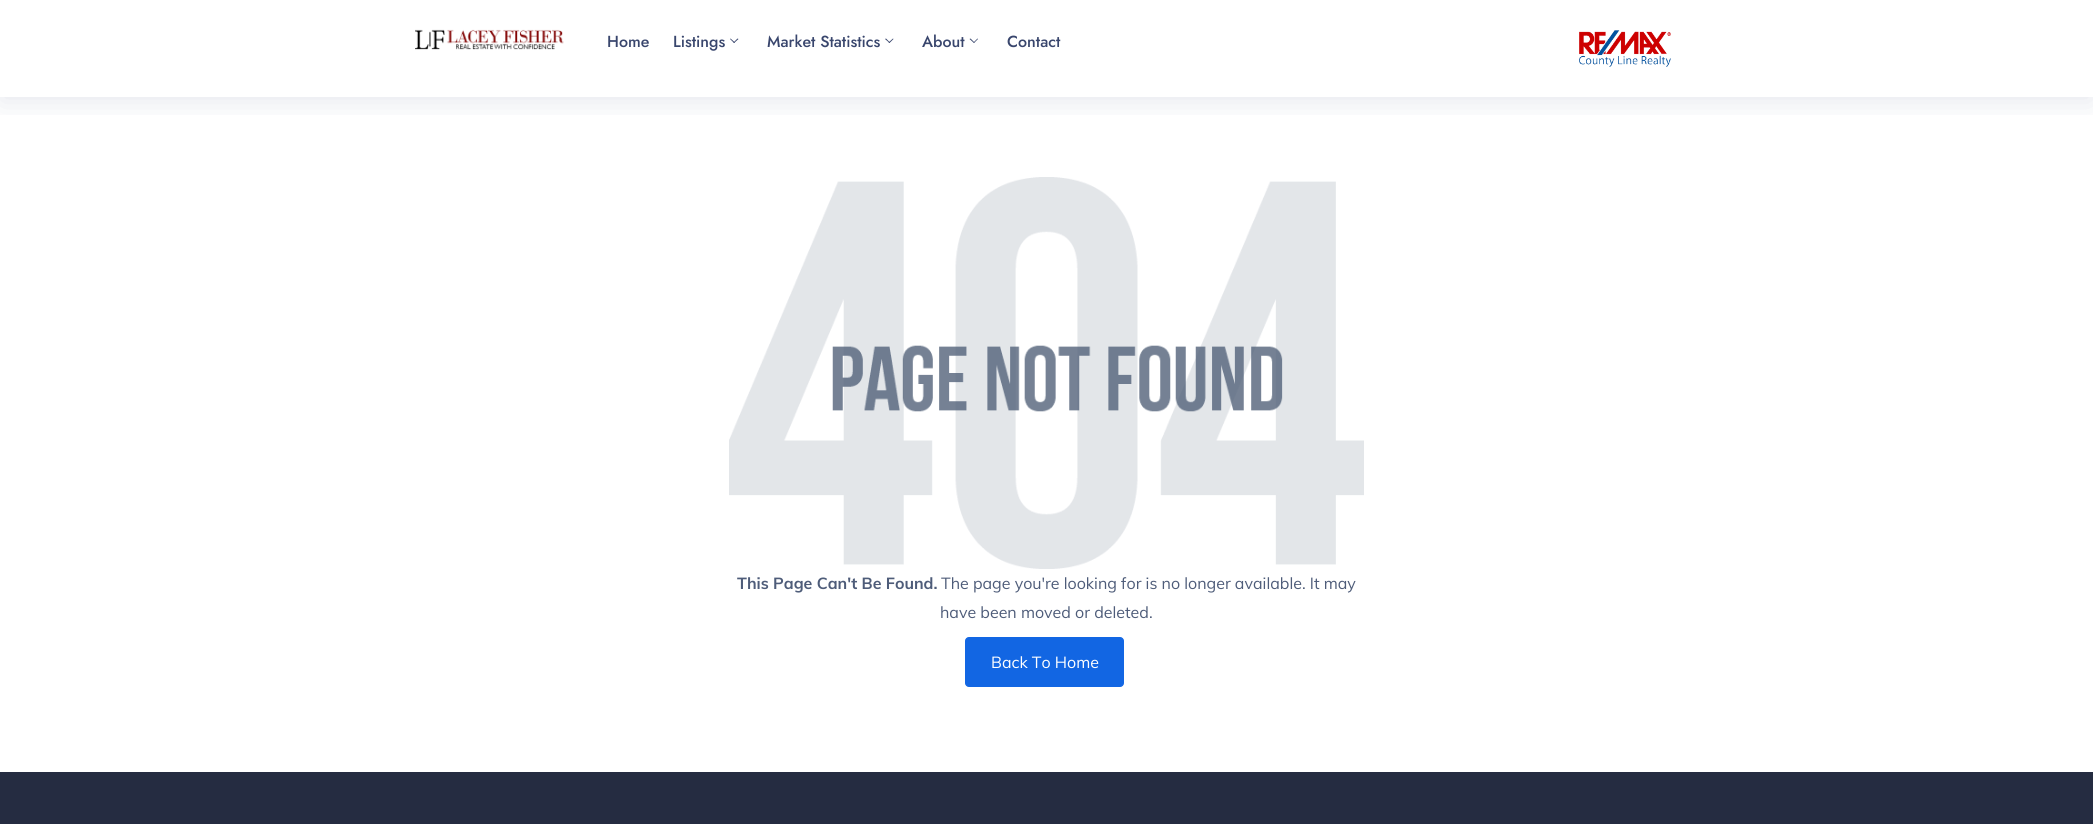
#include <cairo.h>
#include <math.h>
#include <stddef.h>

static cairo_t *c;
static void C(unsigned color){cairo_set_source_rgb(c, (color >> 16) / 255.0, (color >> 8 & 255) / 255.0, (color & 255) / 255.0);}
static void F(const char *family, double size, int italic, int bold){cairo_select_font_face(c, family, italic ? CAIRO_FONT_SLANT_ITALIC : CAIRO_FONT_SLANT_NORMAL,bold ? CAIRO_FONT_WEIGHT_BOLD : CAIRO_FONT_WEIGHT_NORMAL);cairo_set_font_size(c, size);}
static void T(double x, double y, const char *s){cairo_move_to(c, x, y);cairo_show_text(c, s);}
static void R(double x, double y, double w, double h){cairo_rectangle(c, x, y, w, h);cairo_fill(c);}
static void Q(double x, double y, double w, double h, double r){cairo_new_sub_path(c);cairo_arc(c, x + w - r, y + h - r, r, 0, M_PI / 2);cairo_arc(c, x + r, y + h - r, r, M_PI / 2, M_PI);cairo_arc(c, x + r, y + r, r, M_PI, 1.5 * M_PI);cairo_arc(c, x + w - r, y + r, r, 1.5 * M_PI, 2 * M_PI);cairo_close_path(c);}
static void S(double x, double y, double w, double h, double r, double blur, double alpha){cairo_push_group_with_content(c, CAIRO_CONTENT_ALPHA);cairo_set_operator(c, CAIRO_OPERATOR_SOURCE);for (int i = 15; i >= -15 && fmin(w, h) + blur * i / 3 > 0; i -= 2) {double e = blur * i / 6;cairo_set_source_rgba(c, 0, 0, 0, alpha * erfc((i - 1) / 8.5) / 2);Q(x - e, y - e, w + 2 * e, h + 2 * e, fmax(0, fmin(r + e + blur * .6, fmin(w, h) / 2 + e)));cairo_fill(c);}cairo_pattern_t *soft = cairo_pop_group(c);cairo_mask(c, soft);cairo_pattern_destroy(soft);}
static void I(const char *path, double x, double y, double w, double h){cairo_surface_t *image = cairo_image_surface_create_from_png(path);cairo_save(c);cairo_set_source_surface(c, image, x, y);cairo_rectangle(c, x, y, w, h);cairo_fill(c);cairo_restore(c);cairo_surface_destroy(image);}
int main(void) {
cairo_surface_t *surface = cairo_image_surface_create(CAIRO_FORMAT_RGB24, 2093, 824);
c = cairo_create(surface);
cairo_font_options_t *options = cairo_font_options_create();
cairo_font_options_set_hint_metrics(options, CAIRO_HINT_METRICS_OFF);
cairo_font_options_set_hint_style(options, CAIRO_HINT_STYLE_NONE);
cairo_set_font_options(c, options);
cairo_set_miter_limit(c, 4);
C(0xffffff);
cairo_paint(c);
cairo_save(c);
cairo_rectangle(c,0,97,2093,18);
cairo_clip(c);
C(0x001654);
S(0,5,2093,97,0,15,.1);
cairo_restore(c);
I("1.png",415,29,149,21);
F("Jost Medium",16,0,0);
C(0x39466d);
T(607,47,"Home");
T(673,47,"Listings");
cairo_new_path(c);
cairo_move_to(c,737.5,38.5);
cairo_line_to(c,738.5,39);
cairo_line_to(c,734,43);
cairo_line_to(c,733.5,42.5);
cairo_close_path(c);
cairo_fill(c);
cairo_new_path(c);
cairo_move_to(c,730.5,38.5);
cairo_line_to(c,735,42.5);
cairo_line_to(c,734,43);
cairo_line_to(c,730,39);
cairo_close_path(c);
cairo_fill(c);
T(767,47,"Market Statistics");
cairo_new_path(c);
cairo_move_to(c,893,38.5);
cairo_line_to(c,893.5,39);
cairo_line_to(c,889.5,43);
cairo_line_to(c,888.5,42.5);
cairo_close_path(c);
cairo_fill(c);
cairo_new_path(c);
cairo_move_to(c,886,38.5);
cairo_line_to(c,890,42.5);
cairo_line_to(c,889.5,43);
cairo_line_to(c,885,39);
cairo_close_path(c);
cairo_fill(c);
T(922,47,"About");
cairo_new_path(c);
cairo_move_to(c,977.5,38.5);
cairo_line_to(c,978,39);
cairo_line_to(c,974,43);
cairo_line_to(c,973.5,42.5);
cairo_close_path(c);
cairo_fill(c);
cairo_new_path(c);
cairo_move_to(c,970.5,38.5);
cairo_line_to(c,974.5,42.5);
cairo_line_to(c,974,43);
cairo_line_to(c,969.5,39);
cairo_close_path(c);
cairo_fill(c);
T(1007,47,"Contact");
I("2.png",1579,30,92,37);
I("3.png",729,177,635,392);
F("Muli",16,0,1);
C(0x4e5c79);
T(737,589,"This Page Can't Be Found.");
F("Muli",16,0,0);
T(941,589,"The page you're looking for is no longer available. It may");
T(940,618,"have been moved or deleted.");
C(0x1266e3);
Q(965.5,637.5,158,49,3.5);
cairo_fill_preserve(c);
cairo_set_line_width(c,1);
cairo_stroke(c);
C(0xffffff);
T(991,668,"Back To Home");
C(0x252c41);
R(0,772,2093,52);
cairo_surface_write_to_png(surface, "o.png");
cairo_font_options_destroy(options);
cairo_destroy(c);
cairo_surface_destroy(surface);
return 0;
}
